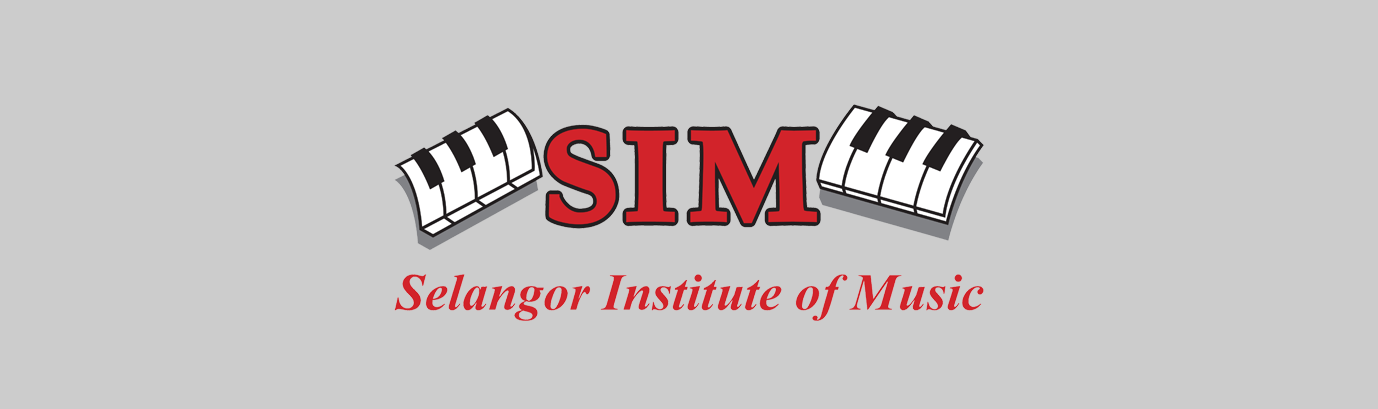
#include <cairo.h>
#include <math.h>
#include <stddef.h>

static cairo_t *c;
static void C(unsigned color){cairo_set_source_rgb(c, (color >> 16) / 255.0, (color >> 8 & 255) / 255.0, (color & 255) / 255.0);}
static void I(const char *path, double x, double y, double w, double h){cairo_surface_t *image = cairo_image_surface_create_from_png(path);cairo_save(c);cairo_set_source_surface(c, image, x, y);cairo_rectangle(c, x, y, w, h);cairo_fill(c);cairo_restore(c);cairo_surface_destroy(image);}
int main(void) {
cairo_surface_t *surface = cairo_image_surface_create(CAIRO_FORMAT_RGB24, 1378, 409);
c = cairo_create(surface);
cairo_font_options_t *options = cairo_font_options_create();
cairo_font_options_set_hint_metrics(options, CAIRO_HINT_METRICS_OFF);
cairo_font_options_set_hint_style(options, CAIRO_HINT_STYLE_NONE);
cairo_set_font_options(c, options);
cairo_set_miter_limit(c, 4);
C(0xcccccc);
cairo_paint(c);
I("1.png",394,104,590,217);
cairo_surface_write_to_png(surface, "o.png");
cairo_font_options_destroy(options);
cairo_destroy(c);
cairo_surface_destroy(surface);
return 0;
}
